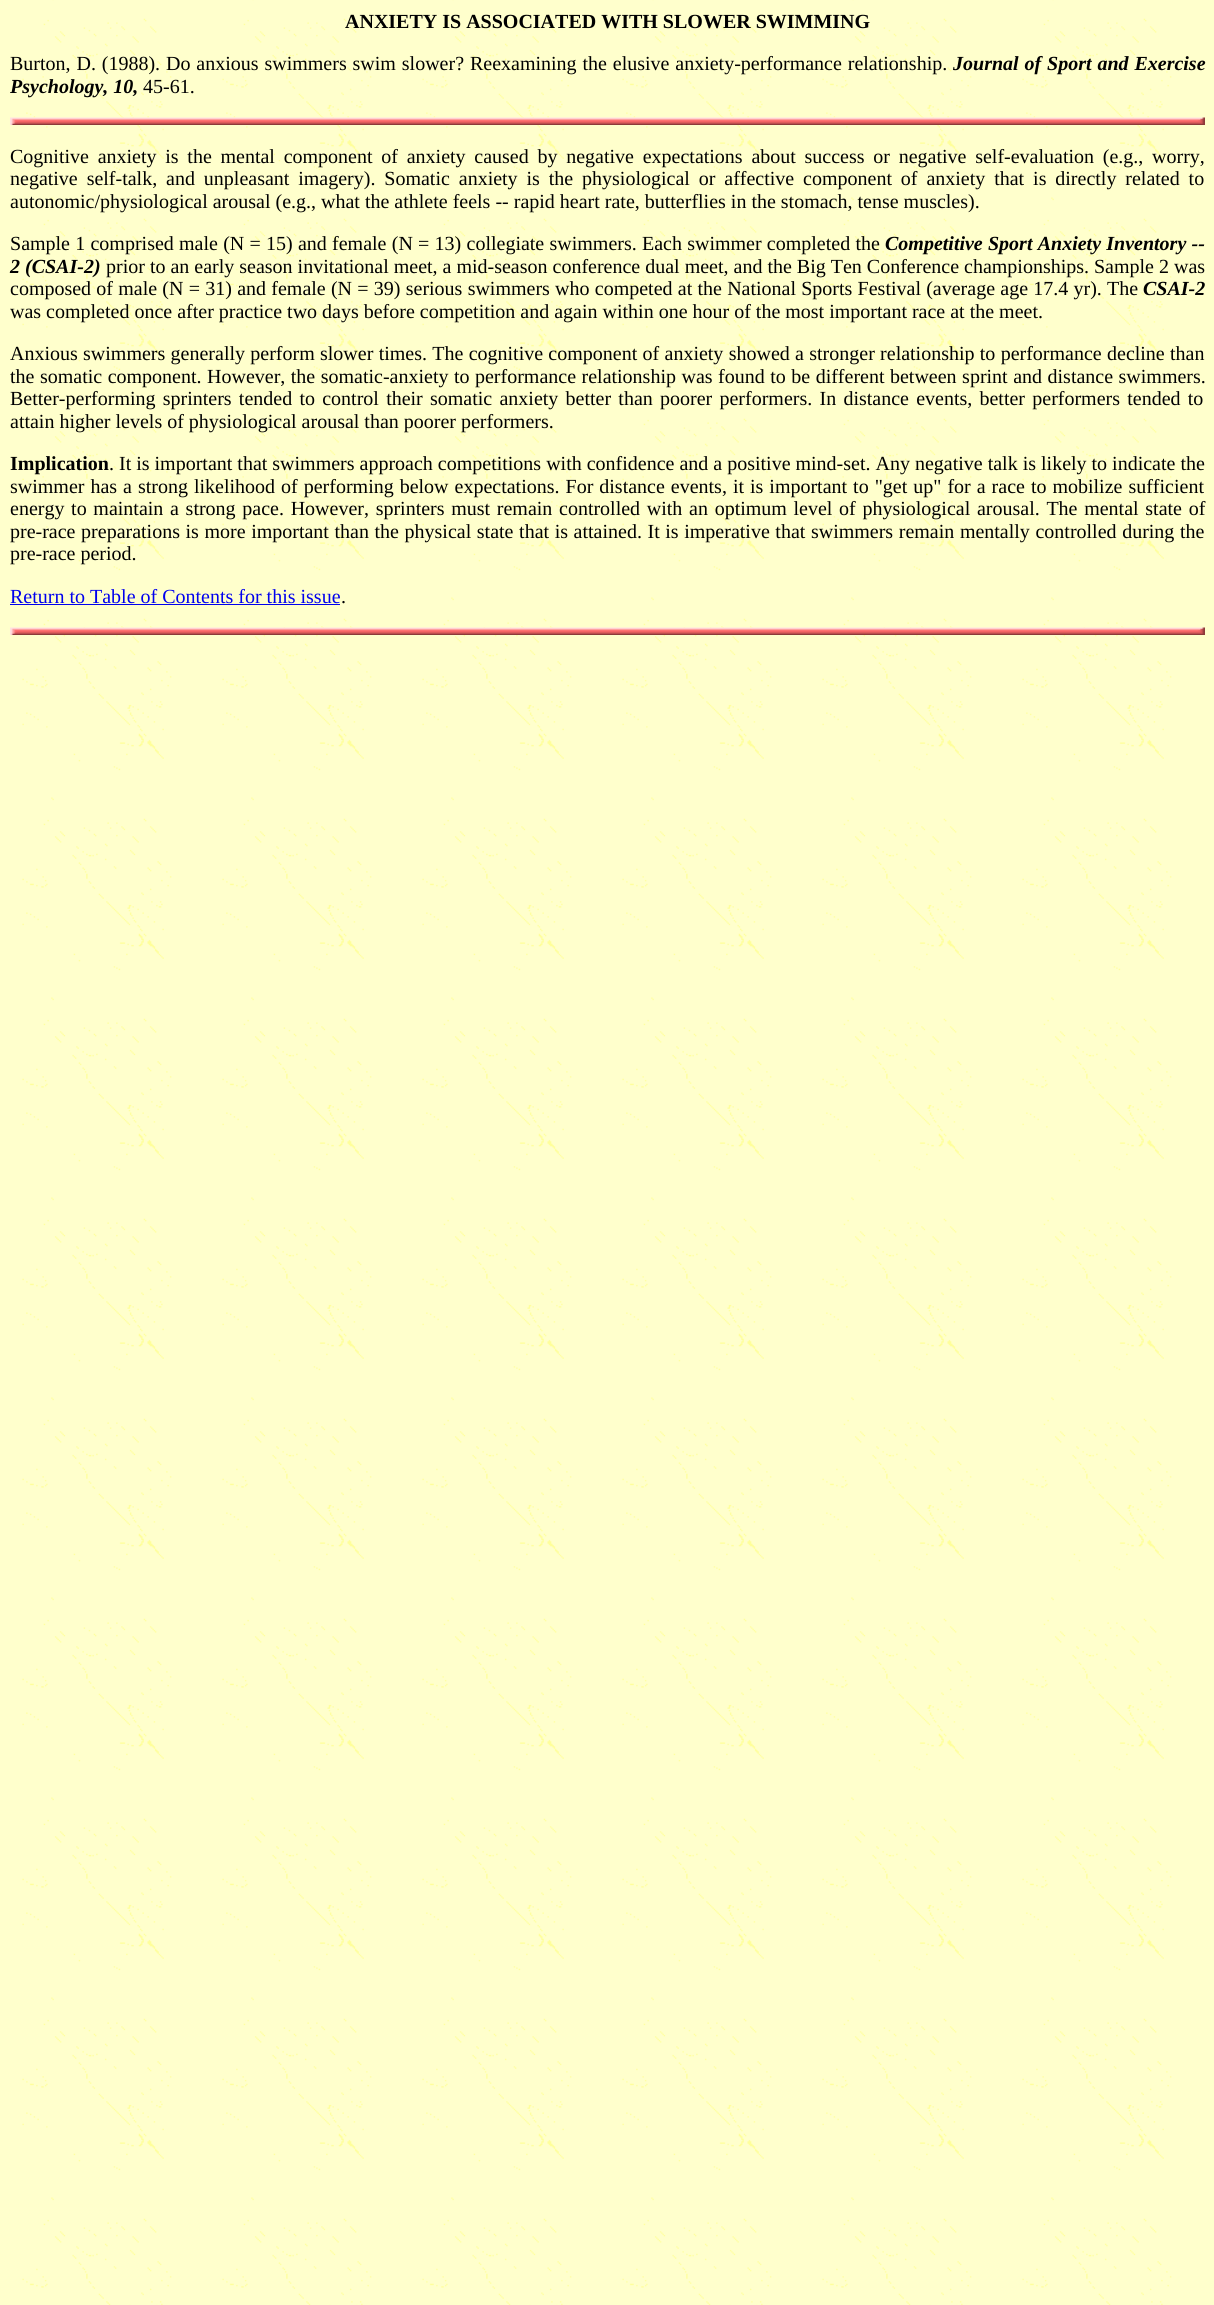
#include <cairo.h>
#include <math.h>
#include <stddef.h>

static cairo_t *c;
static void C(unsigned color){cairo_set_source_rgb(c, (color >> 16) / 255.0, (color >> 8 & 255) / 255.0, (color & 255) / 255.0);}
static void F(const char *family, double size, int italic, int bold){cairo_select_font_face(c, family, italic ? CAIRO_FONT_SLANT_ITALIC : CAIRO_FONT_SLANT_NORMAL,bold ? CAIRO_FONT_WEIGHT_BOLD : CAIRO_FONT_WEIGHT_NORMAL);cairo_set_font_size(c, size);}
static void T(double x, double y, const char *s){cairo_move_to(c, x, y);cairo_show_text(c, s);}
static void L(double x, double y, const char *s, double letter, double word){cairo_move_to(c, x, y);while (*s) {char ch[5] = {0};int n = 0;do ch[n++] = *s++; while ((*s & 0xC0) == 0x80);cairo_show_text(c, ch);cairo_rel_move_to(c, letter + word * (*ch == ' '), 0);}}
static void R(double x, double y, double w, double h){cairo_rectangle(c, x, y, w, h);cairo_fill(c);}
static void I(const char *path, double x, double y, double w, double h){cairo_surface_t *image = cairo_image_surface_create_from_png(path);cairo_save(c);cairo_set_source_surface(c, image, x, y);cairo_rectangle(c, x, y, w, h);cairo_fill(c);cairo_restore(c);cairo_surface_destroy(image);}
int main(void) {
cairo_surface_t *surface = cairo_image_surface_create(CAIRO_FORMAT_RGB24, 1214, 2305);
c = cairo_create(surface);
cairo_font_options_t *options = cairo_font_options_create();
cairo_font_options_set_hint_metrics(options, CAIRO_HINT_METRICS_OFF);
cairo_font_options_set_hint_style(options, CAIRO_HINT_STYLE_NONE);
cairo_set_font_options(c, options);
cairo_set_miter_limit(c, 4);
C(0xffffff);
cairo_paint(c);
I("1.png",0,0,1214,2305);
F("Liberation Serif",20,0,1);
C(0x000000);
T(345,28,"ANXIETY IS ASSOCIATED WITH SLOWER SWIMMING");
F("Liberation Serif",20,0,0);
L(10,70,"Burton, D. (1988). Do anxious swimmers swim slower? Reexamining the elusive anxiety-performance relationship.",0,.9);
F("Liberation Serif",20,1,1);
L(953,70,"Journal of Sport and Exercise",0,.9);
T(10,93,"Psychology, 10,");
F("Liberation Serif",20,0,0);
T(143,93,"45-61.");
I("2.png",10,117,1195,8);
L(10,163,"Cognitive anxiety is the mental component of anxiety caused by negative expectations about success or negative self-evaluation (e.g., worry,",0,3.75);
L(10,185,"negative self-talk, and unpleasant imagery). Somatic anxiety is the physiological or affective component of anxiety that is directly related to",0,3.9);
T(10,208,"autonomic/physiological arousal (e.g., what the athlete feels -- rapid heart rate, butterflies in the stomach, tense muscles).");
L(10,250,"Sample 1 comprised male (N = 15) and female (N = 13) collegiate swimmers. Each swimmer completed the",0,.25);
F("Liberation Serif",20,1,1);
L(885,250,"Competitive Sport Anxiety Inventory --",0,.25);
T(10,273,"2 (CSAI-2)");
F("Liberation Serif",20,0,0);
T(106,273,"prior to an early season invitational meet, a mid-season conference dual meet, and the Big Ten Conference championships. Sample 2 was");
L(10,295,"composed of male (N = 31) and female (N = 39) serious swimmers who competed at the National Sports Festival (average age 17.4 yr). The",0,.25);
F("Liberation Serif",20,1,1);
T(1143,295,"CSAI-2");
F("Liberation Serif",20,0,0);
T(10,318,"was completed once after practice two days before competition and again within one hour of the most important race at the meet.");
L(10,360,"Anxious swimmers generally perform slower times. The cognitive component of anxiety showed a stronger relationship to performance decline than",0,.3);
L(10,383,"the somatic component. However, the somatic-anxiety to performance relationship was found to be different between sprint and distance swimmers.",0,.5);
L(10,405,"Better-performing sprinters tended to control their somatic anxiety better than poorer performers. In distance events, better performers tended to",0,2.25);
T(10,428,"attain higher levels of physiological arousal than poorer performers.");
F("Liberation Serif",20,0,1);
T(10,470,"Implication");
F("Liberation Serif",20,0,0);
T(109,470,". It is important that swimmers approach competitions with confidence and a positive mind-set. Any negative talk is likely to indicate the");
L(10,493,"swimmer has a strong likelihood of performing below expectations. For distance events, it is important to \"get up\" for a race to mobilize sufficient",0,1);
L(10,515,"energy to maintain a strong pace. However, sprinters must remain controlled with an optimum level of physiological arousal. The mental state of",0,1.7);
L(10,538,"pre-race preparations is more important than the physical state that is attained. It is imperative that swimmers remain mentally controlled during the",0,.6);
T(10,560,"pre-race period.");
C(0x0000ee);
T(10,603,"Return to Table of Contents for this issue");
R(10,604,330,1);
C(0x000000);
T(341,603,".");
I("3.png",10,627,1195,8);
cairo_surface_write_to_png(surface, "o.png");
cairo_font_options_destroy(options);
cairo_destroy(c);
cairo_surface_destroy(surface);
return 0;
}
